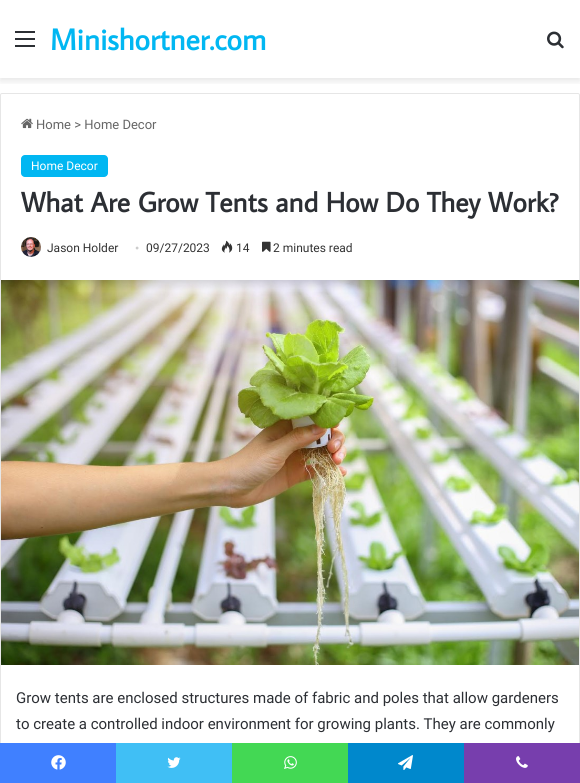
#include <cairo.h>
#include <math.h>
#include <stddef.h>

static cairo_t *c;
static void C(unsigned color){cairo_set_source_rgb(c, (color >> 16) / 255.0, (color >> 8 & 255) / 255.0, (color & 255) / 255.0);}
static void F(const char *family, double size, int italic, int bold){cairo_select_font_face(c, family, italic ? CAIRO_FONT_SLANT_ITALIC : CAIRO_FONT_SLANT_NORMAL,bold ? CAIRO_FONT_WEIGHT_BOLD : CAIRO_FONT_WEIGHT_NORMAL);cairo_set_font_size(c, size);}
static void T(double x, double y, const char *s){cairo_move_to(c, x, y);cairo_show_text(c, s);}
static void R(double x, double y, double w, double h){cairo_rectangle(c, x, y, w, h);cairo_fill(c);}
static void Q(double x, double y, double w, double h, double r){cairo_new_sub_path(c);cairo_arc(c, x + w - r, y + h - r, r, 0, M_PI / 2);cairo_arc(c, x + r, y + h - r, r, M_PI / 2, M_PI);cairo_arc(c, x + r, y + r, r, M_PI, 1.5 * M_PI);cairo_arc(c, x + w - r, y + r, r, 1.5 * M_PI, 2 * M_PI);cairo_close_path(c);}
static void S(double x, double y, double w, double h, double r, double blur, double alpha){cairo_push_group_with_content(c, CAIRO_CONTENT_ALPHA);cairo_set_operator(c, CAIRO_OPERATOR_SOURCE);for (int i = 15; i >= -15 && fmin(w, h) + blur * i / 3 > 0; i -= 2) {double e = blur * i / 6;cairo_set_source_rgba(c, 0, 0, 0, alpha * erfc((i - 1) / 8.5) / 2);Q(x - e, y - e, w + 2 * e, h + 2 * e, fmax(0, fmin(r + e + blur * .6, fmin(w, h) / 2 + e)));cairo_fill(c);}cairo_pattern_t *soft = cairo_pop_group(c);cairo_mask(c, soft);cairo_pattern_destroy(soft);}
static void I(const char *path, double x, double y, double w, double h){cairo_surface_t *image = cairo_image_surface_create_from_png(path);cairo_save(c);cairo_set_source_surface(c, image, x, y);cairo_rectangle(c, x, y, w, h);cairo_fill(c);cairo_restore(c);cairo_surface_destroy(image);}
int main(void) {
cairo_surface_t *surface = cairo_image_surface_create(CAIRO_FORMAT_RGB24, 580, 783);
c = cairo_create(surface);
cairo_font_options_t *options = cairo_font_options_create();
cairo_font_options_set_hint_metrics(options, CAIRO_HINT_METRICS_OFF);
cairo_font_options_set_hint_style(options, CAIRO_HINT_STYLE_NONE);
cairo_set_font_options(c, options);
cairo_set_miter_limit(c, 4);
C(0xffffff);
cairo_paint(c);
cairo_save(c);
cairo_rectangle(c,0,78,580,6);
cairo_clip(c);
C(0x000000);
S(0,3,580,78,0,3.5,.1);
cairo_restore(c);
C(0x2c2f34);
R(15,38,20,2);
R(15,31,20,2);
R(15,45,20,2);
F("Average Sans",30,0,1);
C(0x01b7f2);
T(50,50,"Minishortner.com");
I("1.png",547,31,17,18);
Q(.5,93.5,579,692,1.5);
C(0xe6e6e6);
cairo_set_line_width(c,1);
cairo_stroke(c);
I("2.png",21,118,12,11);
F("Roboto",13,0,0);
C(0x666666);
T(36,129,"Home > Home Decor");
C(0x01b7f2);
Q(21,155,87,22,4);
cairo_fill(c);
F("Roboto",12,0,0);
C(0xffffff);
T(31,170,"Home Decor");
F("Average Sans",28,0,1);
C(0x2c2f34);
T(21,212,"What Are Grow Tents and How Do They Work?");
I("3.png",21,237,20,20);
F("Roboto",12,0,0);
C(0x333333);
T(47,252,"Jason Holder");
F("Liberation Serif",12,0,0);
C(0xcccccc);
T(135,252,"•");
F("Roboto",12,0,0);
C(0x333333);
T(146,252,"09/27/2023");
I("4.png",221,240,12,13);
T(236,252,"14");
I("5.png",262,241,9,11);
T(273,252,"2 minutes read");
I("6.png",1,280,578,385);
F("Roboto",15,0,0);
C(0x2c2f34);
T(16,703,"Grow tents are enclosed structures made of fabric and poles that allow gardeners");
T(16,729,"to create a controlled indoor environment for growing plants. They are commonly");
C(0x4080ff);
R(0,743,116,40);
I("7.png",51,755,15,15);
C(0x40bff5);
R(116,743,116,40);
I("8.png",167,757,14,11);
C(0x43d854);
R(232,743,116,40);
I("9.png",284,756,13,13);
C(0x0088cc);
R(348,743,116,40);
I("10.png",398,755,15,15);
C(0x773ead);
R(464,743,116,40);
I("11.png",516,756,12,12);
cairo_surface_write_to_png(surface, "o.png");
cairo_font_options_destroy(options);
cairo_destroy(c);
cairo_surface_destroy(surface);
return 0;
}
